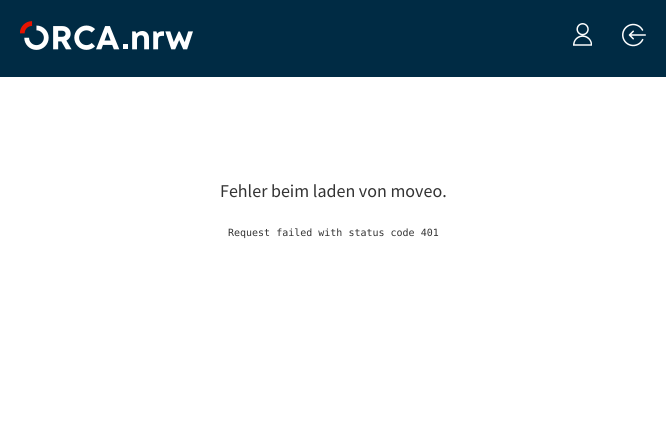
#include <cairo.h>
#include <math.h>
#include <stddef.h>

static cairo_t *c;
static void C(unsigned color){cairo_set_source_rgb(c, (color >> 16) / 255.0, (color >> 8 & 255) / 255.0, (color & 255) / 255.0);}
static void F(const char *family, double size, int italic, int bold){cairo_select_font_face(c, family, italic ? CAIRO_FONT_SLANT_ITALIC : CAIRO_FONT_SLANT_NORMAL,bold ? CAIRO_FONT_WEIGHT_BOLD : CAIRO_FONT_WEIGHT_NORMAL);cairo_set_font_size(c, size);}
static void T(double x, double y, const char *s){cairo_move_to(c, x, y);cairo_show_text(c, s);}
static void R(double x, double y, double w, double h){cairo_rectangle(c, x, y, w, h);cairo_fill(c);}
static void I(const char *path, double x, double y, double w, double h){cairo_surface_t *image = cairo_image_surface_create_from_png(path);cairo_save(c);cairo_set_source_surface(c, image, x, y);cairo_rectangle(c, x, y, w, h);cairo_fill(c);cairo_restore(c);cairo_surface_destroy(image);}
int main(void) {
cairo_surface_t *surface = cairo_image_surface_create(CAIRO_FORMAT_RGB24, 666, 444);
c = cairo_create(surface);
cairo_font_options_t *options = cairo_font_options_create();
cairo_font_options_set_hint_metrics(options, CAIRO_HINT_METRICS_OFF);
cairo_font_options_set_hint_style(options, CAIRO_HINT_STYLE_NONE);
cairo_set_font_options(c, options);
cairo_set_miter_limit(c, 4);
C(0xffffff);
cairo_paint(c);
C(0x002b44);
R(0,0,666,77);
I("1.png",20,21,173,29);
I("2.png",573,23,19,23);
I("3.png",622,23,24,24);
F("Source Sans Pro",18,0,0);
C(0x333333);
T(220,197,"Fehler beim laden von moveo.");
F("DejaVu Sans Mono",10,0,0);
T(228,236,"Request failed with status code 401");
cairo_surface_write_to_png(surface, "o.png");
cairo_font_options_destroy(options);
cairo_destroy(c);
cairo_surface_destroy(surface);
return 0;
}
